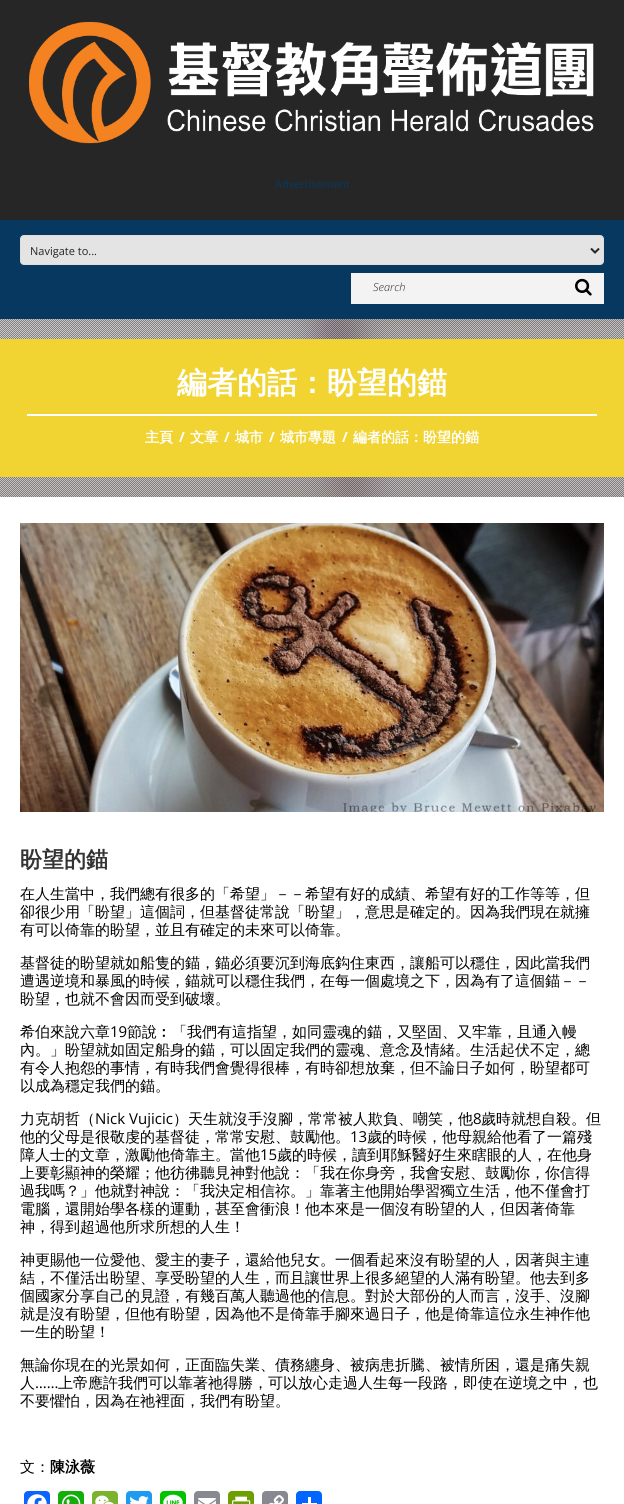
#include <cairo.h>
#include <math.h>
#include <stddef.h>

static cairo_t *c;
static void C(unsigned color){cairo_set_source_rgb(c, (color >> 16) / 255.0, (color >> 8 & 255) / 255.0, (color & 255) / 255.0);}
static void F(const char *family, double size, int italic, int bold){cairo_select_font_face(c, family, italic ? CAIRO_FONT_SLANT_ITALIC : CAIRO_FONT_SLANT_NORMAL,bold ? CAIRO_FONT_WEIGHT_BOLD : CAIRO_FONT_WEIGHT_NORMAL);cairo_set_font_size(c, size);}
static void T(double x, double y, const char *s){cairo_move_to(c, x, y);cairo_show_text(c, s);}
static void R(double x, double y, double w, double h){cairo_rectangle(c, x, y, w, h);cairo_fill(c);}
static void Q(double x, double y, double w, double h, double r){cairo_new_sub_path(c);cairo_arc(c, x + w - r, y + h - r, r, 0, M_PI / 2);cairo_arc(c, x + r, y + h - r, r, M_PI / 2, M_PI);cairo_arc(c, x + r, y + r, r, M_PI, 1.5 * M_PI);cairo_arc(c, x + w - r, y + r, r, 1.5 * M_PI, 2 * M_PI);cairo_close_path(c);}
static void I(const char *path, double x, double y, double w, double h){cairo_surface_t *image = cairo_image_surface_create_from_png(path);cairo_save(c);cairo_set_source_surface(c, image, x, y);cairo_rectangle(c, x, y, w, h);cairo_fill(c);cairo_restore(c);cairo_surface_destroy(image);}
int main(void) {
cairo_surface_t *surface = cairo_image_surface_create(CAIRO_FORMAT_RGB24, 624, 1504);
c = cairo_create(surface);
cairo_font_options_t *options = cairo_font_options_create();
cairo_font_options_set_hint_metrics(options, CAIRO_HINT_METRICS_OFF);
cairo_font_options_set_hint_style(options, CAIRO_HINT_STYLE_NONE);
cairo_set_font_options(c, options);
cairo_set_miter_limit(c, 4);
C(0xffffff);
cairo_paint(c);
I("1.png",0,319,624,178);
C(0x262626);
R(0,0,624,220);
I("2.png",29,21,565,123);
F("Open Sans",11,0,0);
C(0x073860);
T(275,188,"Advertisement");
R(0,220,624,99);
C(0xe4e4e4);
Q(20.5,235.5,583,29,3.5);
cairo_fill_preserve(c);
C(0xdddddd);
cairo_set_line_width(c,1);
cairo_stroke(c);
cairo_new_path(c);
cairo_move_to(c,591,248.5);
cairo_line_to(c,595,252.5);
cairo_line_to(c,599,248.5);
C(0x262626);
cairo_set_line_width(c,2);
cairo_stroke(c);
T(30,255,"Navigate to...");
C(0xf3f3f3);
R(351,273,253,31);
F("Open Sans Light",11,1,0);
C(0x262626);
T(373,291,"Search");
I("3.png",575,278,17,18);
C(0xf1d432);
R(0,339,624,138);
F("WenQuanYi Zen Hei",30,0,1);
C(0xffffff);
T(177,393,"編者的話：盼望的錨");
R(27,414,570,2);
F("WenQuanYi Zen Hei",14,0,1);
T(145,442,"主頁");
F("Open Sans",14,0,1);
T(179,442,"/");
F("WenQuanYi Zen Hei",14,0,1);
T(190,442,"文章");
F("Open Sans",14,0,1);
T(224,442,"/");
F("WenQuanYi Zen Hei",14,0,1);
T(235,442,"城市");
F("Open Sans",14,0,1);
T(269,442,"/");
F("WenQuanYi Zen Hei",14,0,1);
T(280,442,"城市專題");
F("Open Sans",14,0,1);
T(342,442,"/");
F("WenQuanYi Zen Hei",14,0,1);
T(353,442,"編者的話：盼望的錨");
I("4.png",20,523,584,289);
F("WenQuanYi Zen Hei",22,0,1);
C(0x333333);
T(20,867,"盼望的錨");
F("WenQuanYi Zen Hei Medium",15,0,0);
C(0x000000);
T(20,899,"在人生當中，我們總有很多的「希望」－－希望有好的成績、希望有好的工作等等，但");
T(20,917,"卻很少用「盼望」這個詞，但基督徒常說「盼望」，意思是確定的。因為我們現在就擁");
T(20,935,"有可以倚靠的盼望，並且有確定的未來可以倚靠。");
T(20,968,"基督徒的盼望就如船隻的錨，錨必須要沉到海底鈎住東西，讓船可以穩住，因此當我們");
T(20,986,"遭遇逆境和暴風的時候，錨就可以穩住我們，在每一個處境之下，因為有了這個錨－－");
T(20,1004,"盼望，也就不會因而受到破壞。");
T(20,1037,"希伯來說六章");
F("Open Sans",15,0,0);
T(110,1037,"19");
F("WenQuanYi Zen Hei Medium",15,0,0);
T(127,1037,"節說︰「我們有這指望，如同靈魂的錨，又堅固、又牢靠，且通入幔");
T(20,1055,"內。」盼望就如固定船身的錨，可以固定我們的靈魂、意念及情緒。生活起伏不定，總");
T(20,1073,"有令人抱怨的事情，有時我們會覺得很棒，有時卻想放棄，但不論日子如何，盼望都可");
T(20,1091,"以成為穩定我們的錨。");
T(20,1124,"力克胡哲（");
F("Open Sans",15,0,0);
T(95,1124,"Nick Vujicic");
F("WenQuanYi Zen Hei Medium",15,0,0);
T(173,1124,"）天生就沒手沒腳，常常被人欺負、嘲笑，他");
F("Open Sans",15,0,0);
T(473,1124,"8");
F("WenQuanYi Zen Hei Medium",15,0,0);
T(481,1124,"歲時就想自殺。但");
T(20,1142,"他的父母是很敬虔的基督徒，常常安慰、鼓勵他。");
F("Open Sans",15,0,0);
T(350,1142,"13");
F("WenQuanYi Zen Hei Medium",15,0,0);
T(367,1142,"歲的時候，他母親給他看了一篇殘");
T(20,1160,"障人士的文章，激勵他倚靠主。當他");
F("Open Sans",15,0,0);
T(260,1160,"15");
F("WenQuanYi Zen Hei Medium",15,0,0);
T(277,1160,"歲的時候，讀到耶穌醫好生來瞎眼的人，在他身");
T(20,1178,"上要彰顯神的榮耀；他彷彿聽見神對他說：「我在你身旁，我會安慰、鼓勵你，你信得");
T(20,1196,"過我嗎？」他就對神說：「我決定相信祢。」靠著主他開始學習獨立生活，他不僅會打");
T(20,1214,"電腦，還開始學各樣的運動，甚至會衝浪！他本來是一個沒有盼望的人，但因著倚靠");
T(20,1232,"神，得到超過他所求所想的人生！");
T(20,1265,"神更賜他一位愛他、愛主的妻子，還給他兒女。一個看起來沒有盼望的人，因著與主連");
T(20,1283,"結，不僅活出盼望、享受盼望的人生，而且讓世界上很多絕望的人滿有盼望。他去到多");
T(20,1301,"個國家分享自己的見證，有幾百萬人聽過他的信息。對於大部份的人而言，沒手、沒腳");
T(20,1319,"就是沒有盼望，但他有盼望，因為他不是倚靠手腳來過日子，他是倚靠這位永生神作他");
T(20,1337,"一生的盼望！");
T(20,1370,"無論你現在的光景如何，正面臨失業、債務纏身、被病患折騰、被情所困，還是痛失親");
T(20,1388,"人");
F("Open Sans",15,0,0);
T(35,1388,"……");
F("WenQuanYi Zen Hei Medium",15,0,0);
T(58,1388,"上帝應許我們可以靠著祂得勝，可以放心走過人生每一段路，即使在逆境之中，也");
T(20,1406,"不要懼怕，因為在祂裡面，我們有盼望。");
T(20,1472,"文：");
F("WenQuanYi Zen Hei",15,0,1);
T(50,1472,"陳泳薇");
C(0x0866ff);
Q(24,1491,26,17,4);
cairo_fill(c);
I("5.png",27,1494,20,10);
C(0x12af0a);
Q(58,1491,26,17,4);
cairo_fill(c);
I("6.png",62,1494,19,10);
C(0x7bb32e);
Q(92,1491,26,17,4);
cairo_fill(c);
I("7.png",95,1495,19,9);
C(0x1d9bf0);
Q(126,1491,26,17,4);
cairo_fill(c);
I("8.png",130,1496,19,8);
C(0x00c300);
Q(160,1491,26,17,4);
cairo_fill(c);
I("9.png",163,1494,20,10);
C(0x888990);
Q(194,1491,26,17,4);
cairo_fill(c);
I("10.png",198,1498,18,6);
C(0x6d9f00);
Q(228,1491,26,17,4);
cairo_fill(c);
I("11.png",232,1496,19,8);
C(0x888990);
Q(262,1491,26,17,4);
cairo_fill(c);
I("12.png",269,1495,15,9);
C(0x0166ff);
Q(296,1491,26,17,4);
cairo_fill(c);
C(0xffffff);
R(308,1497,3,7);
R(302,1503,15,1);
cairo_surface_write_to_png(surface, "o.png");
cairo_font_options_destroy(options);
cairo_destroy(c);
cairo_surface_destroy(surface);
return 0;
}
